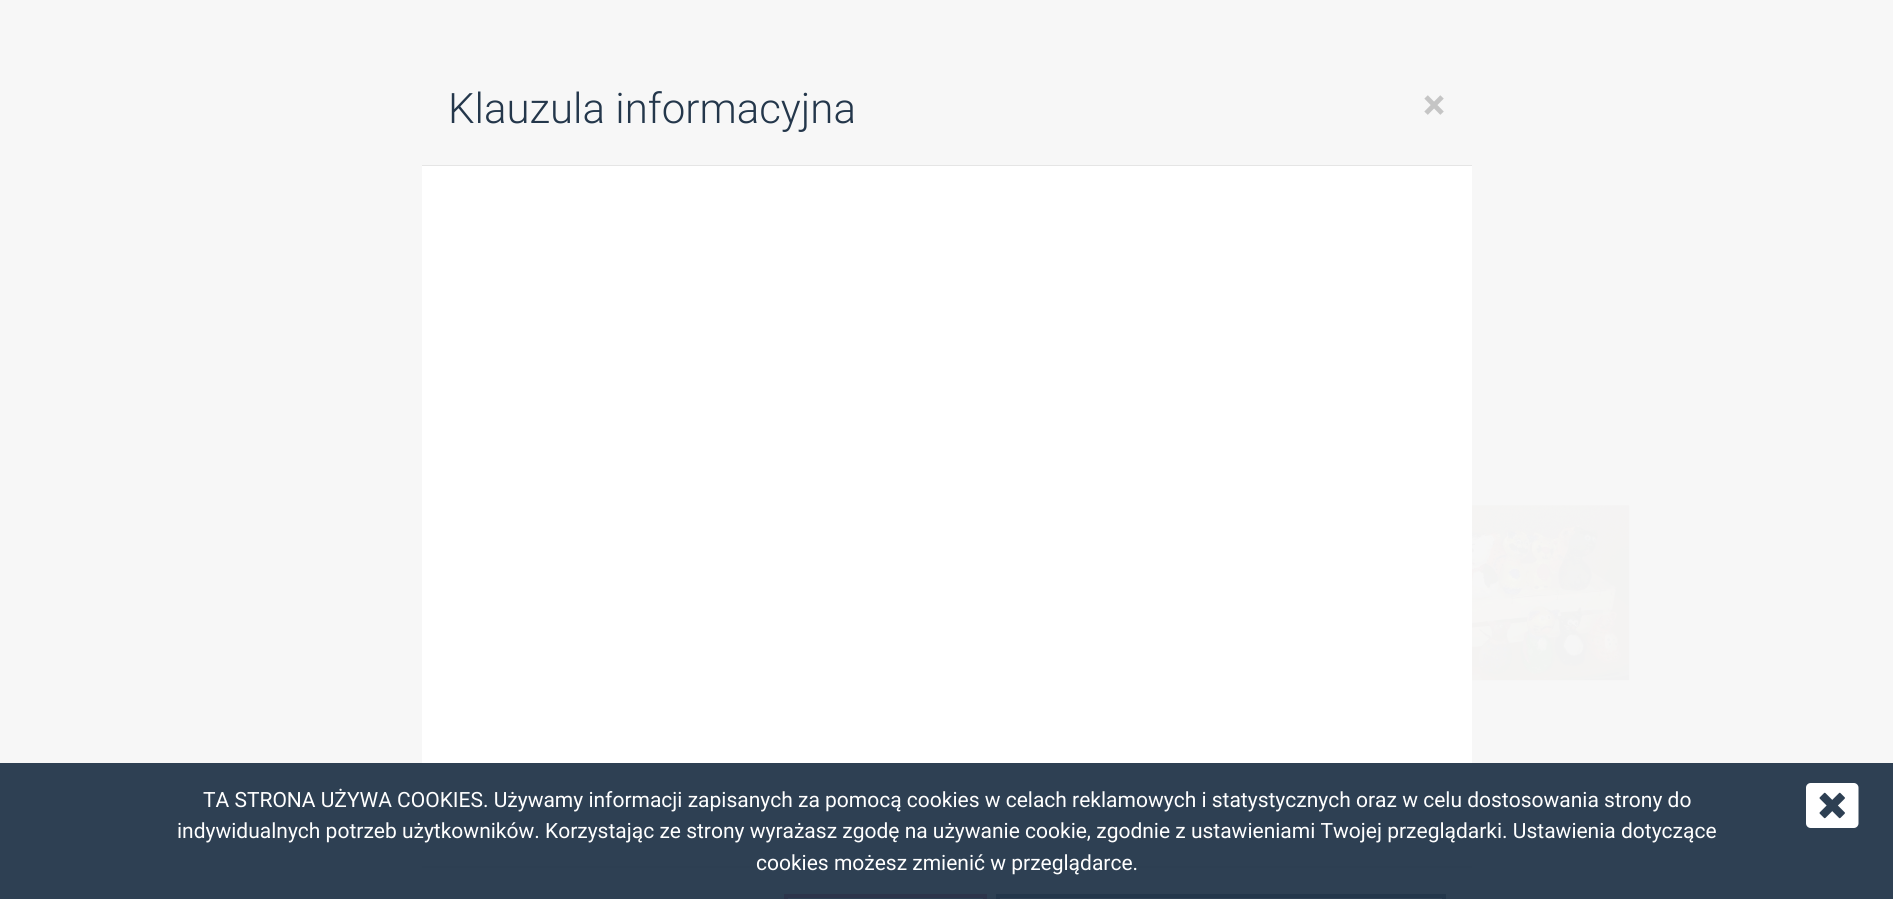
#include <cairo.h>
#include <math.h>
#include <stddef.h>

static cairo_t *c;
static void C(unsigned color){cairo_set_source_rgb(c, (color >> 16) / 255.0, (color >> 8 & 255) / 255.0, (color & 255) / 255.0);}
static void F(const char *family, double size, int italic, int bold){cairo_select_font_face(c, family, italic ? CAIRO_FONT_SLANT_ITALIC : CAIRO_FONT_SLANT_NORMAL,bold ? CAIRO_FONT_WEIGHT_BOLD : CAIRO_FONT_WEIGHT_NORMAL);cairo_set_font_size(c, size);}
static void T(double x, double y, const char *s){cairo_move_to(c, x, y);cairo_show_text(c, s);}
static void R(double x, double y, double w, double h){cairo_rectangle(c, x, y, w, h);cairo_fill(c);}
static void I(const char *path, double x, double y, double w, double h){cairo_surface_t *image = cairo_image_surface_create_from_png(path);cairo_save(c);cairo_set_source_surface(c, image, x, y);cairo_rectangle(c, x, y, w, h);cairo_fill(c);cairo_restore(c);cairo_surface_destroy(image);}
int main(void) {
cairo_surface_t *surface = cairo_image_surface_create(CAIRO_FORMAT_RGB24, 1893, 899);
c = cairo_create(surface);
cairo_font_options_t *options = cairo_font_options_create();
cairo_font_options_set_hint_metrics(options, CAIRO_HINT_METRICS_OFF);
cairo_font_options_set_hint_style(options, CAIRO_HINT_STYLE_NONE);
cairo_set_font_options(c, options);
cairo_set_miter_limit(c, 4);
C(0xf7f7f7);
cairo_paint(c);
C(0xe5e5e5);
R(422,165,1050,1);
F("Roboto Light",42,0,0);
C(0x24374b);
T(448,123,"Klauzula informacyjna");
F("Roboto",42,0,1);
C(0xc5c5c5);
T(1423,119,"×");
C(0xffffff);
R(422,166,1050,700);
C(0xe5e5e5);
R(422,866,1050,2);
C(0xffffff);
cairo_rectangle(c,786,896,199,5);
cairo_fill_preserve(c);
C(0xee1c58);
cairo_set_line_width(c,4);
cairo_stroke(c);
C(0xffffff);
cairo_rectangle(c,998,896,446,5);
cairo_fill_preserve(c);
C(0x24374b);
cairo_stroke(c);
I("1.png",1472,505,158,176);
cairo_set_source_rgba(c,0.141,0.216,0.294,0.95);
R(0,763,1893,136);
F("Roboto",21,0,0);
C(0xffffff);
T(203,807,"TA STRONA UŻYWA COOKIES. Używamy informacji zapisanych za pomocą cookies w celach reklamowych i statystycznych oraz w celu dostosowania strony do");
I("2.png",1806,783,53,45);
T(177,838,"indywidualnych potrzeb użytkowników. Korzystając ze strony wyrażasz zgodę na używanie cookie, zgodnie z ustawieniami Twojej przeglądarki. Ustawienia dotyczące");
T(756,870,"cookies możesz zmienić w przeglądarce.");
cairo_surface_write_to_png(surface, "o.png");
cairo_font_options_destroy(options);
cairo_destroy(c);
cairo_surface_destroy(surface);
return 0;
}
